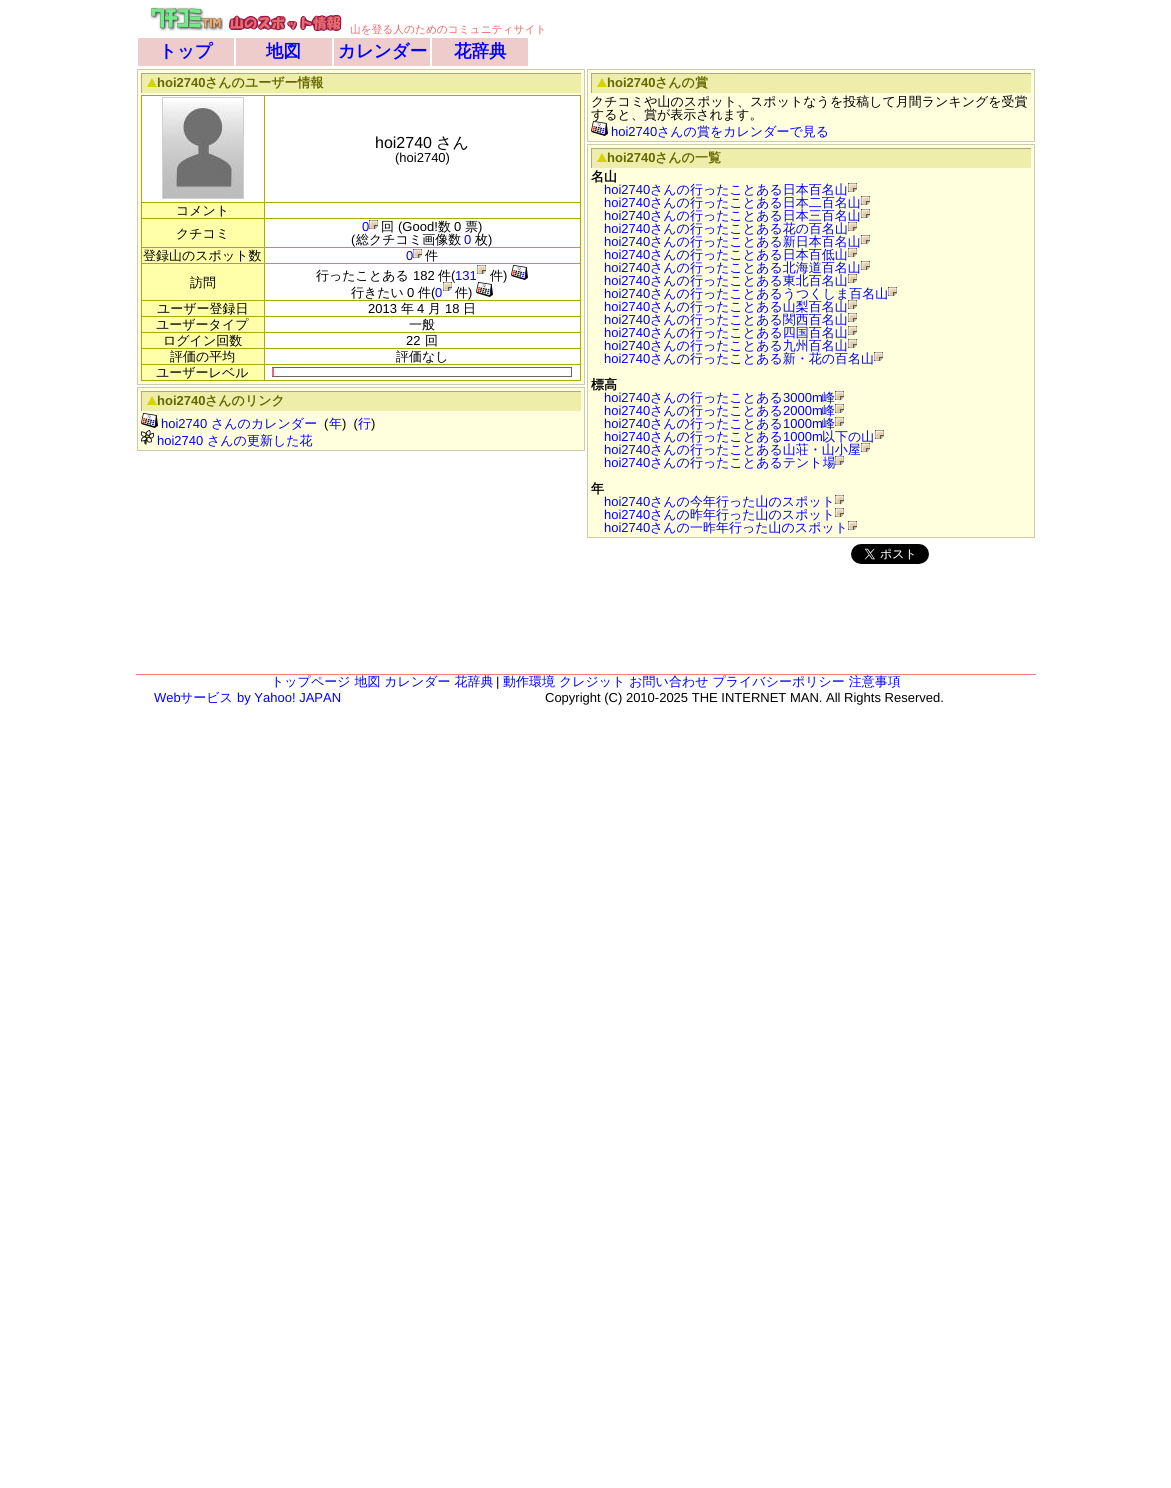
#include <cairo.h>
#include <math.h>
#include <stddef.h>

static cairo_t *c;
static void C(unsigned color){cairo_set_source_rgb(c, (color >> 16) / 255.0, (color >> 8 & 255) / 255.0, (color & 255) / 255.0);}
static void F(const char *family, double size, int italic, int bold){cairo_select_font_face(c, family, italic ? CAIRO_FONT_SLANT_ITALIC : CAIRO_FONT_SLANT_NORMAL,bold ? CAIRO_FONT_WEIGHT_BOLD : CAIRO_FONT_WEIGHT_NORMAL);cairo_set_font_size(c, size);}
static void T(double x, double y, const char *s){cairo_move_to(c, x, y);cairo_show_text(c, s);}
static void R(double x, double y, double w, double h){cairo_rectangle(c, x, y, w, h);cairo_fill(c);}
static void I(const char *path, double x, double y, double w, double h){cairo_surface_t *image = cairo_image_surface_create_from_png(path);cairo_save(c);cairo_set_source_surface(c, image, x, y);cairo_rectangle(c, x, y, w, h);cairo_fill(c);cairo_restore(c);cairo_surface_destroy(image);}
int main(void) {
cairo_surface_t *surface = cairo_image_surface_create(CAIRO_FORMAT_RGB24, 1171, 1488);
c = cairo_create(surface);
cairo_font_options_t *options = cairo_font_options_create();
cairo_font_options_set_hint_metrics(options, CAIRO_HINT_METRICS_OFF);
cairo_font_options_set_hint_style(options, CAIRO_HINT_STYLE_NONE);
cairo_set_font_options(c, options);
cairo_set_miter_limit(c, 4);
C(0xffffff);
cairo_paint(c);
I("1.png",150,7,73,24);
I("2.png",229,15,113,16);
F("WenQuanYi Zen Hei Medium",10.7,0,0);
C(0xee6666);
T(350,33,"山を登る人のためのコミュニティサイト");
C(0xeecccc);
R(138,38,96,28);
F("WenQuanYi Zen Hei",17.5,0,1);
C(0x0000ff);
T(159,57,"トップ");
C(0xeecccc);
R(236,38,96,28);
C(0x0000ff);
T(266,57,"地図");
C(0xeecccc);
R(334,38,96,28);
C(0x0000ff);
T(338,57,"カレンダー");
C(0xeecccc);
R(432,38,96,28);
C(0x0000ff);
T(454,57,"花辞典");
C(0xffffdd);
cairo_rectangle(c,137.5,69.5,447,315);
cairo_fill_preserve(c);
C(0xccccaa);
cairo_set_line_width(c,1);
cairo_stroke(c);
C(0xeeeeaa);
R(142,74,439,19);
C(0xaaaa88);
R(141,73,440,1);
R(141,73,1,20);
I("3.png",147,78,10,9);
F("Liberation Sans",13,0,1);
C(0x666600);
T(157,87,"hoi2740");
F("WenQuanYi Zen Hei",13,0,1);
T(205,87,"さんのユーザー情報");
C(0xffffff);
R(142,96,122,106);
C(0xaaaa00);
R(264,95,317,1);
R(264,202,317,1);
R(264,218,317,1);
R(264,247,317,1);
R(264,263,317,1);
R(264,300,317,1);
R(264,316,317,1);
R(264,332,317,1);
R(264,348,317,1);
R(264,364,317,1);
R(580,364,1,17);
R(264,380,317,1);
R(264,364,1,17);
R(141,364,124,1);
R(264,348,1,17);
R(141,348,124,1);
R(264,332,1,17);
R(141,332,124,1);
R(264,316,1,17);
R(141,316,124,1);
R(264,300,1,17);
R(141,300,124,1);
R(264,263,1,38);
R(141,263,124,1);
R(264,247,1,17);
R(141,247,124,1);
R(264,218,1,30);
R(141,218,124,1);
R(264,202,1,17);
R(141,202,124,1);
R(264,95,1,108);
R(141,95,124,1);
R(141,380,124,1);
R(141,364,1,17);
R(141,348,1,17);
R(141,332,1,17);
R(141,316,1,17);
R(141,300,1,17);
R(141,263,1,38);
R(141,247,1,17);
R(141,218,1,30);
R(141,202,1,17);
R(141,95,1,108);
cairo_rectangle(c,162.5,97.5,81,101);
C(0xd0d0d0);
cairo_stroke(c);
I("4.png",163,101,80,97);
C(0xffffff);
R(265,96,315,106);
C(0xaaaa00);
R(580,348,1,17);
R(580,332,1,17);
R(580,316,1,17);
R(580,300,1,17);
R(580,263,1,38);
R(580,247,1,17);
R(580,218,1,30);
R(580,202,1,17);
R(580,95,1,108);
F("Liberation Sans",16,0,0);
C(0x000000);
T(375,148,"hoi2740");
F("WenQuanYi Zen Hei Medium",16,0,0);
T(436,148,"さん");
F("Liberation Sans",13,0,0);
T(395,162,"(hoi2740)");
C(0xffffaa);
R(142,203,122,15);
F("WenQuanYi Zen Hei Medium",13,0,0);
C(0x000000);
T(176,215,"コメント");
C(0xffffff);
R(265,203,315,15);
C(0xffffaa);
R(142,219,122,28);
C(0x000000);
T(176,238,"クチコミ");
C(0xffffff);
R(265,219,315,28);
F("Liberation Sans",13,0,0);
C(0x0000ff);
T(362,231,"0");
I("5.png",369,220,9,9);
F("WenQuanYi Zen Hei Medium",13,0,0);
C(0x000000);
T(381,231,"回");
F("Liberation Sans",13,0,0);
T(398,231,"(Good!");
F("WenQuanYi Zen Hei Medium",13,0,0);
T(438,231,"数");
F("Liberation Sans",13,0,0);
T(454,231,"0");
F("WenQuanYi Zen Hei Medium",13,0,0);
T(465,231,"票");
F("Liberation Sans",13,0,0);
T(478,231,")");
T(351,244,"(");
F("WenQuanYi Zen Hei Medium",13,0,0);
T(356,244,"総クチコミ画像数");
F("Liberation Sans",13,0,0);
C(0x0000ff);
T(464,244,"0");
F("WenQuanYi Zen Hei Medium",13,0,0);
C(0x000000);
T(475,244,"枚");
F("Liberation Sans",13,0,0);
T(488,244,")");
C(0xffffaa);
R(142,248,122,15);
F("WenQuanYi Zen Hei Medium",13,0,0);
C(0x000000);
T(143,260,"登録山のスポット数");
C(0xffffff);
R(265,248,315,15);
F("Liberation Sans",13,0,0);
C(0x0000ff);
T(406,260,"0");
I("5.png",413,249,9,9);
F("WenQuanYi Zen Hei Medium",13,0,0);
C(0x000000);
T(425,260,"件");
C(0xffffaa);
R(142,264,122,36);
C(0x000000);
T(190,287,"訪問");
C(0xffffff);
R(265,264,315,36);
C(0x000000);
T(316,280,"行ったことある");
F("Liberation Sans",13,0,0);
T(413,280,"182");
F("WenQuanYi Zen Hei Medium",13,0,0);
T(438,280,"件");
F("Liberation Sans",13,0,0);
T(451,280,"(");
C(0x0000ff);
T(455,280,"131");
I("5.png",477,265,9,9);
F("WenQuanYi Zen Hei Medium",13,0,0);
C(0x000000);
T(490,280,"件");
F("Liberation Sans",13,0,0);
T(503,280,")");
I("6.png",511,265,17,15);
F("WenQuanYi Zen Hei Medium",13,0,0);
T(351,297,"行きたい");
F("Liberation Sans",13,0,0);
T(407,297,"0");
F("WenQuanYi Zen Hei Medium",13,0,0);
T(418,297,"件");
F("Liberation Sans",13,0,0);
T(431,297,"(");
C(0x0000ff);
T(435,297,"0");
I("5.png",443,282,9,9);
F("WenQuanYi Zen Hei Medium",13,0,0);
C(0x000000);
T(455,297,"件");
F("Liberation Sans",13,0,0);
T(468,297,")");
I("6.png",476,282,17,15);
C(0xffffaa);
R(142,301,122,15);
F("WenQuanYi Zen Hei Medium",13,0,0);
C(0x000000);
T(157,313,"ユーザー登録日");
C(0xffffff);
R(265,301,315,15);
F("Liberation Sans",13,0,0);
C(0x000000);
T(368,313,"2013");
F("WenQuanYi Zen Hei Medium",13,0,0);
T(401,313,"年");
F("Liberation Sans",13,0,0);
T(417,313,"4");
F("WenQuanYi Zen Hei Medium",13,0,0);
T(428,313,"月");
F("Liberation Sans",13,0,0);
T(445,313,"18");
F("WenQuanYi Zen Hei Medium",13,0,0);
T(463,313,"日");
C(0xffffaa);
R(142,317,122,15);
C(0x000000);
T(156,329,"ユーザータイプ");
C(0xffffff);
R(265,317,315,15);
C(0x000000);
T(409,329,"一般");
C(0xffffaa);
R(142,333,122,15);
C(0x000000);
T(163,345,"ログイン回数");
C(0xffffff);
R(265,333,315,15);
F("Liberation Sans",13,0,0);
C(0x000000);
T(406,345,"22");
F("WenQuanYi Zen Hei Medium",13,0,0);
T(425,345,"回");
C(0xffffaa);
R(142,349,122,15);
C(0x000000);
T(170,361,"評価の平均");
C(0xffffff);
R(265,349,315,15);
C(0x000000);
T(396,361,"評価なし");
C(0xffffaa);
R(142,365,122,15);
C(0x000000);
T(156,377,"ユーザーレベル");
C(0xffffff);
R(265,365,315,15);
I("7.png",272,367,300,10);
C(0xffffdd);
cairo_rectangle(c,137.5,387.5,447,63);
cairo_fill_preserve(c);
C(0xccccaa);
cairo_stroke(c);
C(0xeeeeaa);
R(142,392,439,19);
C(0xaaaa88);
R(141,391,440,1);
R(141,391,1,20);
I("3.png",147,396,10,9);
F("Liberation Sans",13,0,1);
C(0x666600);
T(157,405,"hoi2740");
F("WenQuanYi Zen Hei",13,0,1);
T(205,405,"さんのリンク");
I("8.png",141,413,17,15);
F("Liberation Sans",13,0,0);
C(0x0000ff);
T(161,428,"hoi2740");
F("WenQuanYi Zen Hei Medium",13,0,0);
T(211,428,"さんのカレンダー");
F("Liberation Sans",13,0,0);
C(0x000000);
T(324,428,"(");
F("WenQuanYi Zen Hei Medium",13,0,0);
C(0x0000ff);
T(329,428,"年");
F("Liberation Sans",13,0,0);
C(0x000000);
T(342,428,")  (");
F("WenQuanYi Zen Hei Medium",13,0,0);
C(0x0000ff);
T(358,428,"行");
F("Liberation Sans",13,0,0);
C(0x000000);
T(371,428,")");
I("9.png",141,430,13,15);
C(0x0000ff);
T(157,445,"hoi2740");
F("WenQuanYi Zen Hei Medium",13,0,0);
T(207,445,"さんの更新した花");
C(0xffffdd);
cairo_rectangle(c,587.5,69.5,447,72);
cairo_fill_preserve(c);
C(0xccccaa);
cairo_stroke(c);
C(0xeeeeaa);
R(592,74,439,19);
C(0xaaaa88);
R(591,73,440,1);
R(591,73,1,20);
I("3.png",597,78,10,9);
F("Liberation Sans",13,0,1);
C(0x666600);
T(607,87,"hoi2740");
F("WenQuanYi Zen Hei",13,0,1);
T(655,87,"さんの賞");
F("WenQuanYi Zen Hei Medium",13,0,0);
C(0x000000);
T(591,106,"クチコミや山のスポット、スポットなうを投稿して月間ランキングを受賞");
T(591,119,"すると、賞が表示されます。");
I("10.png",591,121,17,15);
F("Liberation Sans",13,0,0);
C(0x0000ff);
T(611,136,"hoi2740");
F("WenQuanYi Zen Hei Medium",13,0,0);
T(657,136,"さんの賞をカレンダーで見る");
C(0xffffdd);
cairo_rectangle(c,587.5,144.5,447,393);
cairo_fill_preserve(c);
C(0xccccaa);
cairo_stroke(c);
C(0xeeeeaa);
R(592,149,439,19);
C(0xaaaa88);
R(591,148,440,1);
R(591,148,1,20);
I("3.png",597,153,10,9);
F("Liberation Sans",13,0,1);
C(0x666600);
T(607,162,"hoi2740");
F("WenQuanYi Zen Hei",13,0,1);
T(655,162,"さんの一覧");
C(0x000000);
T(591,181,"名山");
F("Liberation Sans",13,0,0);
C(0x0000ff);
T(604,194,"hoi2740");
F("WenQuanYi Zen Hei Medium",13,0,0);
T(650,194,"さんの行ったことある日本百名山");
I("11.png",848,183,9,9);
F("Liberation Sans",13,0,0);
T(604,207,"hoi2740");
F("WenQuanYi Zen Hei Medium",13,0,0);
T(650,207,"さんの行ったことある日本二百名山");
I("11.png",861,196,9,9);
F("Liberation Sans",13,0,0);
T(604,220,"hoi2740");
F("WenQuanYi Zen Hei Medium",13,0,0);
T(650,220,"さんの行ったことある日本三百名山");
I("11.png",861,209,9,9);
F("Liberation Sans",13,0,0);
T(604,233,"hoi2740");
F("WenQuanYi Zen Hei Medium",13,0,0);
T(650,233,"さんの行ったことある花の百名山");
I("11.png",848,222,9,9);
F("Liberation Sans",13,0,0);
T(604,246,"hoi2740");
F("WenQuanYi Zen Hei Medium",13,0,0);
T(650,246,"さんの行ったことある新日本百名山");
I("11.png",861,235,9,9);
F("Liberation Sans",13,0,0);
T(604,259,"hoi2740");
F("WenQuanYi Zen Hei Medium",13,0,0);
T(650,259,"さんの行ったことある日本百低山");
I("11.png",848,248,9,9);
F("Liberation Sans",13,0,0);
T(604,272,"hoi2740");
F("WenQuanYi Zen Hei Medium",13,0,0);
T(650,272,"さんの行ったことある北海道百名山");
I("11.png",861,261,9,9);
F("Liberation Sans",13,0,0);
T(604,285,"hoi2740");
F("WenQuanYi Zen Hei Medium",13,0,0);
T(650,285,"さんの行ったことある東北百名山");
I("11.png",848,274,9,9);
F("Liberation Sans",13,0,0);
T(604,298,"hoi2740");
F("WenQuanYi Zen Hei Medium",13,0,0);
T(650,298,"さんの行ったことあるうつくしま百名山");
I("11.png",888,287,9,9);
F("Liberation Sans",13,0,0);
T(604,311,"hoi2740");
F("WenQuanYi Zen Hei Medium",13,0,0);
T(650,311,"さんの行ったことある山梨百名山");
I("11.png",848,300,9,9);
F("Liberation Sans",13,0,0);
T(604,324,"hoi2740");
F("WenQuanYi Zen Hei Medium",13,0,0);
T(650,324,"さんの行ったことある関西百名山");
I("11.png",848,313,9,9);
F("Liberation Sans",13,0,0);
T(604,337,"hoi2740");
F("WenQuanYi Zen Hei Medium",13,0,0);
T(650,337,"さんの行ったことある四国百名山");
I("11.png",848,326,9,9);
F("Liberation Sans",13,0,0);
T(604,350,"hoi2740");
F("WenQuanYi Zen Hei Medium",13,0,0);
T(650,350,"さんの行ったことある九州百名山");
I("11.png",848,339,9,9);
F("Liberation Sans",13,0,0);
T(604,363,"hoi2740");
F("WenQuanYi Zen Hei Medium",13,0,0);
T(650,363,"さんの行ったことある新・花の百名山");
I("11.png",874,352,9,9);
F("WenQuanYi Zen Hei",13,0,1);
C(0x000000);
T(591,389,"標高");
F("Liberation Sans",13,0,0);
C(0x0000ff);
T(604,402,"hoi2740");
F("WenQuanYi Zen Hei Medium",13,0,0);
T(650,402,"さんの行ったことある");
F("Liberation Sans",13,0,0);
T(783,402,"3000m");
F("WenQuanYi Zen Hei Medium",13,0,0);
T(822,402,"峰");
I("11.png",835,391,9,9);
F("Liberation Sans",13,0,0);
T(604,415,"hoi2740");
F("WenQuanYi Zen Hei Medium",13,0,0);
T(650,415,"さんの行ったことある");
F("Liberation Sans",13,0,0);
T(783,415,"2000m");
F("WenQuanYi Zen Hei Medium",13,0,0);
T(822,415,"峰");
I("11.png",835,404,9,9);
F("Liberation Sans",13,0,0);
T(604,428,"hoi2740");
F("WenQuanYi Zen Hei Medium",13,0,0);
T(650,428,"さんの行ったことある");
F("Liberation Sans",13,0,0);
T(783,428,"1000m");
F("WenQuanYi Zen Hei Medium",13,0,0);
T(822,428,"峰");
I("11.png",835,417,9,9);
F("Liberation Sans",13,0,0);
T(604,441,"hoi2740");
F("WenQuanYi Zen Hei Medium",13,0,0);
T(650,441,"さんの行ったことある");
F("Liberation Sans",13,0,0);
T(783,441,"1000m");
F("WenQuanYi Zen Hei Medium",13,0,0);
T(822,441,"以下の山");
I("11.png",875,430,9,9);
F("Liberation Sans",13,0,0);
T(604,454,"hoi2740");
F("WenQuanYi Zen Hei Medium",13,0,0);
T(650,454,"さんの行ったことある山荘・山小屋");
I("11.png",861,443,9,9);
F("Liberation Sans",13,0,0);
T(604,467,"hoi2740");
F("WenQuanYi Zen Hei Medium",13,0,0);
T(650,467,"さんの行ったことあるテント場");
I("11.png",835,456,9,9);
F("WenQuanYi Zen Hei",13,0,1);
C(0x000000);
T(591,493,"年");
F("Liberation Sans",13,0,0);
C(0x0000ff);
T(604,506,"hoi2740");
F("WenQuanYi Zen Hei Medium",13,0,0);
T(650,506,"さんの今年行った山のスポット");
I("11.png",835,495,9,9);
F("Liberation Sans",13,0,0);
T(604,519,"hoi2740");
F("WenQuanYi Zen Hei Medium",13,0,0);
T(650,519,"さんの昨年行った山のスポット");
I("11.png",835,508,9,9);
F("Liberation Sans",13,0,0);
T(604,532,"hoi2740");
F("WenQuanYi Zen Hei Medium",13,0,0);
T(650,532,"さんの一昨年行った山のスポット");
I("11.png",848,521,9,9);
I("12.png",851,544,78,20);
C(0xf08080);
R(136,674,900,1);
C(0x0000ff);
T(271,686,"トップページ 地図 カレンダー 花辞典");
F("Liberation Sans",13,0,0);
C(0x000000);
T(496,686,"|");
F("WenQuanYi Zen Hei Medium",13,0,0);
C(0x0000ff);
T(503,686,"動作環境 クレジット お問い合わせ プライバシーポリシー 注意事項");
F("Liberation Sans",13,0,0);
T(154,702,"Web");
F("WenQuanYi Zen Hei Medium",13,0,0);
T(180,702,"サービス");
F("Liberation Sans",13,0,0);
T(237,702,"by Yahoo! JAPAN");
C(0x000000);
T(545,702,"Copyright (C) 2010-2025 THE INTERNET MAN. All Rights Reserved.");
cairo_surface_write_to_png(surface, "o.png");
cairo_font_options_destroy(options);
cairo_destroy(c);
cairo_surface_destroy(surface);
return 0;
}
